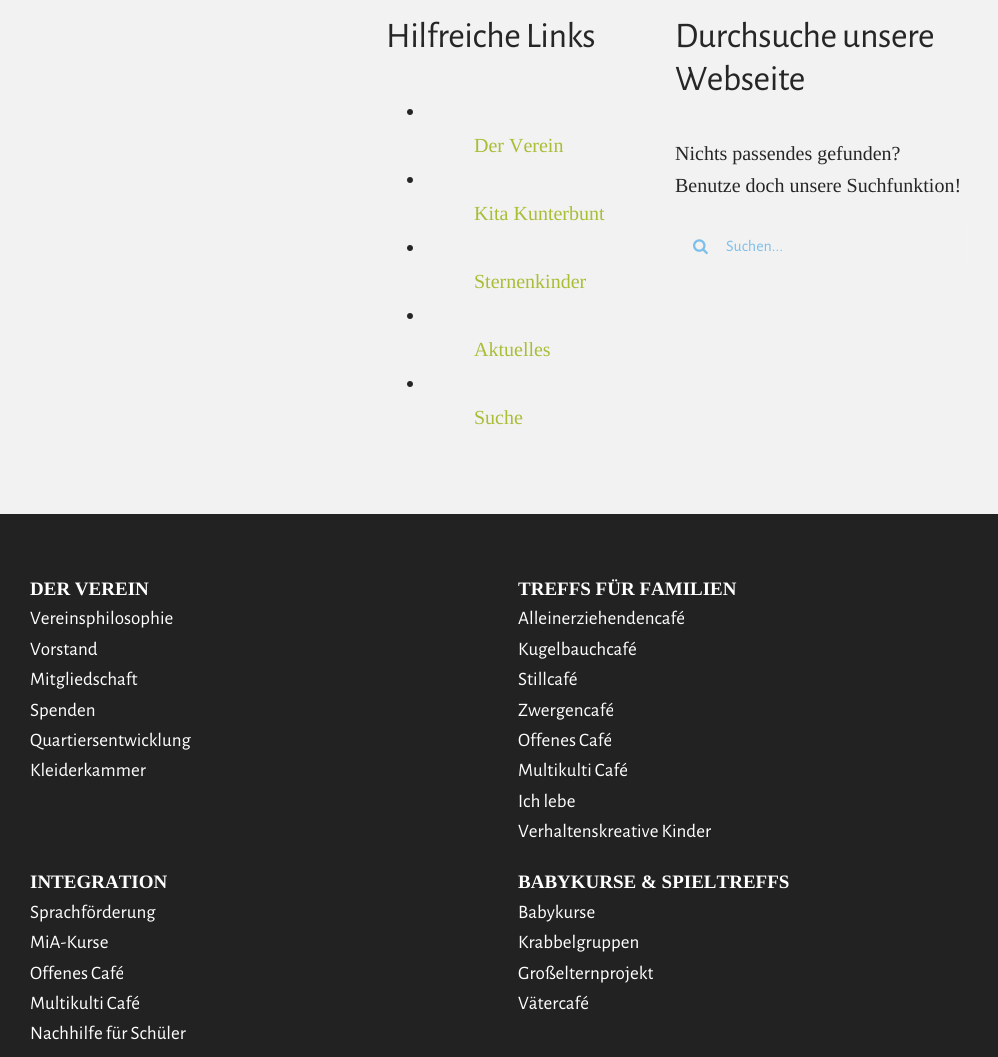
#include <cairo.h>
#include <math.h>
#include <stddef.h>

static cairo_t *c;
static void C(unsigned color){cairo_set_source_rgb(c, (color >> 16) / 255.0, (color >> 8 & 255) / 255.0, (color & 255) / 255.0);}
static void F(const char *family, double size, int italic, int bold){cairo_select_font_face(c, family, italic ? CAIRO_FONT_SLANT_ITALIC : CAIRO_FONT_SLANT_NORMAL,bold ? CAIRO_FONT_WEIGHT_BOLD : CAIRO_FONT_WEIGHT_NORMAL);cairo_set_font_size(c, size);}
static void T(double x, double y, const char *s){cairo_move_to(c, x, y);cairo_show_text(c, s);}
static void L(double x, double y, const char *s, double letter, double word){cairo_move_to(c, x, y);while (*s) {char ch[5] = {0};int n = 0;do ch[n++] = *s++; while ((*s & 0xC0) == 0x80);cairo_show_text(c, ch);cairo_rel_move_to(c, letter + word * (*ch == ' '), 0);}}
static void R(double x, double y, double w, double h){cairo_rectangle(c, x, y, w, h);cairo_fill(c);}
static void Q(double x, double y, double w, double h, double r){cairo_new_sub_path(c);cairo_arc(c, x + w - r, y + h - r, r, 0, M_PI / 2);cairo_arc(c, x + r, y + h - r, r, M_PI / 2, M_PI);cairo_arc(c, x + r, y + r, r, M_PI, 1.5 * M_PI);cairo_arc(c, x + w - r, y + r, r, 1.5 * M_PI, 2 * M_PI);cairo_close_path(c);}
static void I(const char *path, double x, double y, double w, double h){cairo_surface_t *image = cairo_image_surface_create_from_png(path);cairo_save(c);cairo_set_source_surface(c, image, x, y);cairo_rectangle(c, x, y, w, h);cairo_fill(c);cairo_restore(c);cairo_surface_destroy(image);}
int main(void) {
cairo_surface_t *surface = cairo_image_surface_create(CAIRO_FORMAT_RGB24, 998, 1057);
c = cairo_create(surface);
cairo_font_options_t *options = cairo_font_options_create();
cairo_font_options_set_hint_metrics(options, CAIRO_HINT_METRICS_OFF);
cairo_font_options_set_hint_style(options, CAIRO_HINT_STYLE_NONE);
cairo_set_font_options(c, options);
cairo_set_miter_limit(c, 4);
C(0xf2f2f2);
cairo_paint(c);
F("Alegreya Sans",36,0,0);
C(0x262626);
L(386,47,"Hilfreiche Links",-.5,0);
cairo_new_path(c);
cairo_arc(c,410,112,3,0,2 * M_PI);
cairo_fill(c);
F("Liberation Serif",20,0,0);
C(0xa9bd35);
T(474,152,"Der Verein");
C(0x262626);
cairo_new_path(c);
cairo_arc(c,410,180,3,0,2 * M_PI);
cairo_fill(c);
C(0xa9bd35);
T(474,220,"Kita Kunterbunt");
C(0x262626);
cairo_new_path(c);
cairo_arc(c,410,248,3,0,2 * M_PI);
cairo_fill(c);
C(0xa9bd35);
T(474,288,"Sternenkinder");
C(0x262626);
cairo_new_path(c);
cairo_arc(c,410,316,3,0,2 * M_PI);
cairo_fill(c);
C(0xa9bd35);
T(474,356,"Aktuelles");
C(0x262626);
cairo_new_path(c);
cairo_arc(c,410,384,3,0,2 * M_PI);
cairo_fill(c);
C(0xa9bd35);
T(474,424,"Suche");
F("Alegreya Sans",36,0,0);
C(0x262626);
L(675,47,"Durchsuche unsere",-.5,0);
L(675,90,"Webseite",-.5,0);
F("Liberation Serif",20,0,0);
T(675,160,"Nichts passendes gefunden?");
T(675,192,"Benutze doch unsere Suchfunktion!");
Q(675.5,221.5,292,49,5.5);
C(0xf2f3f5);
cairo_set_line_width(c,1);
cairo_stroke(c);
I("1.png",693,239,15,16);
F("Alegreya Sans",16,0,0);
C(0x7cbfea);
T(726,251,"Suchen...");
C(0x222222);
R(0,514,998,543);
F("Liberation Serif",19,0,1);
C(0xffffff);
T(30,595,"DER VEREIN");
F("Alegreya Sans",19,0,0);
T(30,624,"Vereinsphilosophie");
T(30,655,"Vorstand");
T(30,685,"Mitgliedschaft");
T(30,716,"Spenden");
T(30,746,"Quartiersentwicklung");
T(30,776,"Kleiderkammer");
F("Liberation Serif",19,0,1);
T(518,595,"TREFFS FÜR FAMILIEN");
F("Alegreya Sans",19,0,0);
T(518,624,"Alleinerziehendencafé");
T(518,655,"Kugelbauchcafé");
T(518,685,"Stillcafé");
T(518,716,"Zwergencafé");
T(518,746,"Offenes Café");
T(518,776,"Multikulti Café");
T(518,807,"Ich lebe");
T(518,837,"Verhaltenskreative Kinder");
F("Liberation Serif",19,0,1);
T(30,888,"INTEGRATION");
F("Alegreya Sans",19,0,0);
T(30,918,"Sprachförderung");
T(30,948,"MiA-Kurse");
T(30,979,"Offenes Café");
T(30,1009,"Multikulti Café");
T(30,1039,"Nachhilfe für Schüler");
F("Liberation Serif",19,0,1);
T(518,888,"BABYKURSE & SPIELTREFFS");
F("Alegreya Sans",19,0,0);
T(518,918,"Babykurse");
T(518,948,"Krabbelgruppen");
T(518,979,"Großelternprojekt");
T(518,1009,"Vätercafé");
cairo_surface_write_to_png(surface, "o.png");
cairo_font_options_destroy(options);
cairo_destroy(c);
cairo_surface_destroy(surface);
return 0;
}
